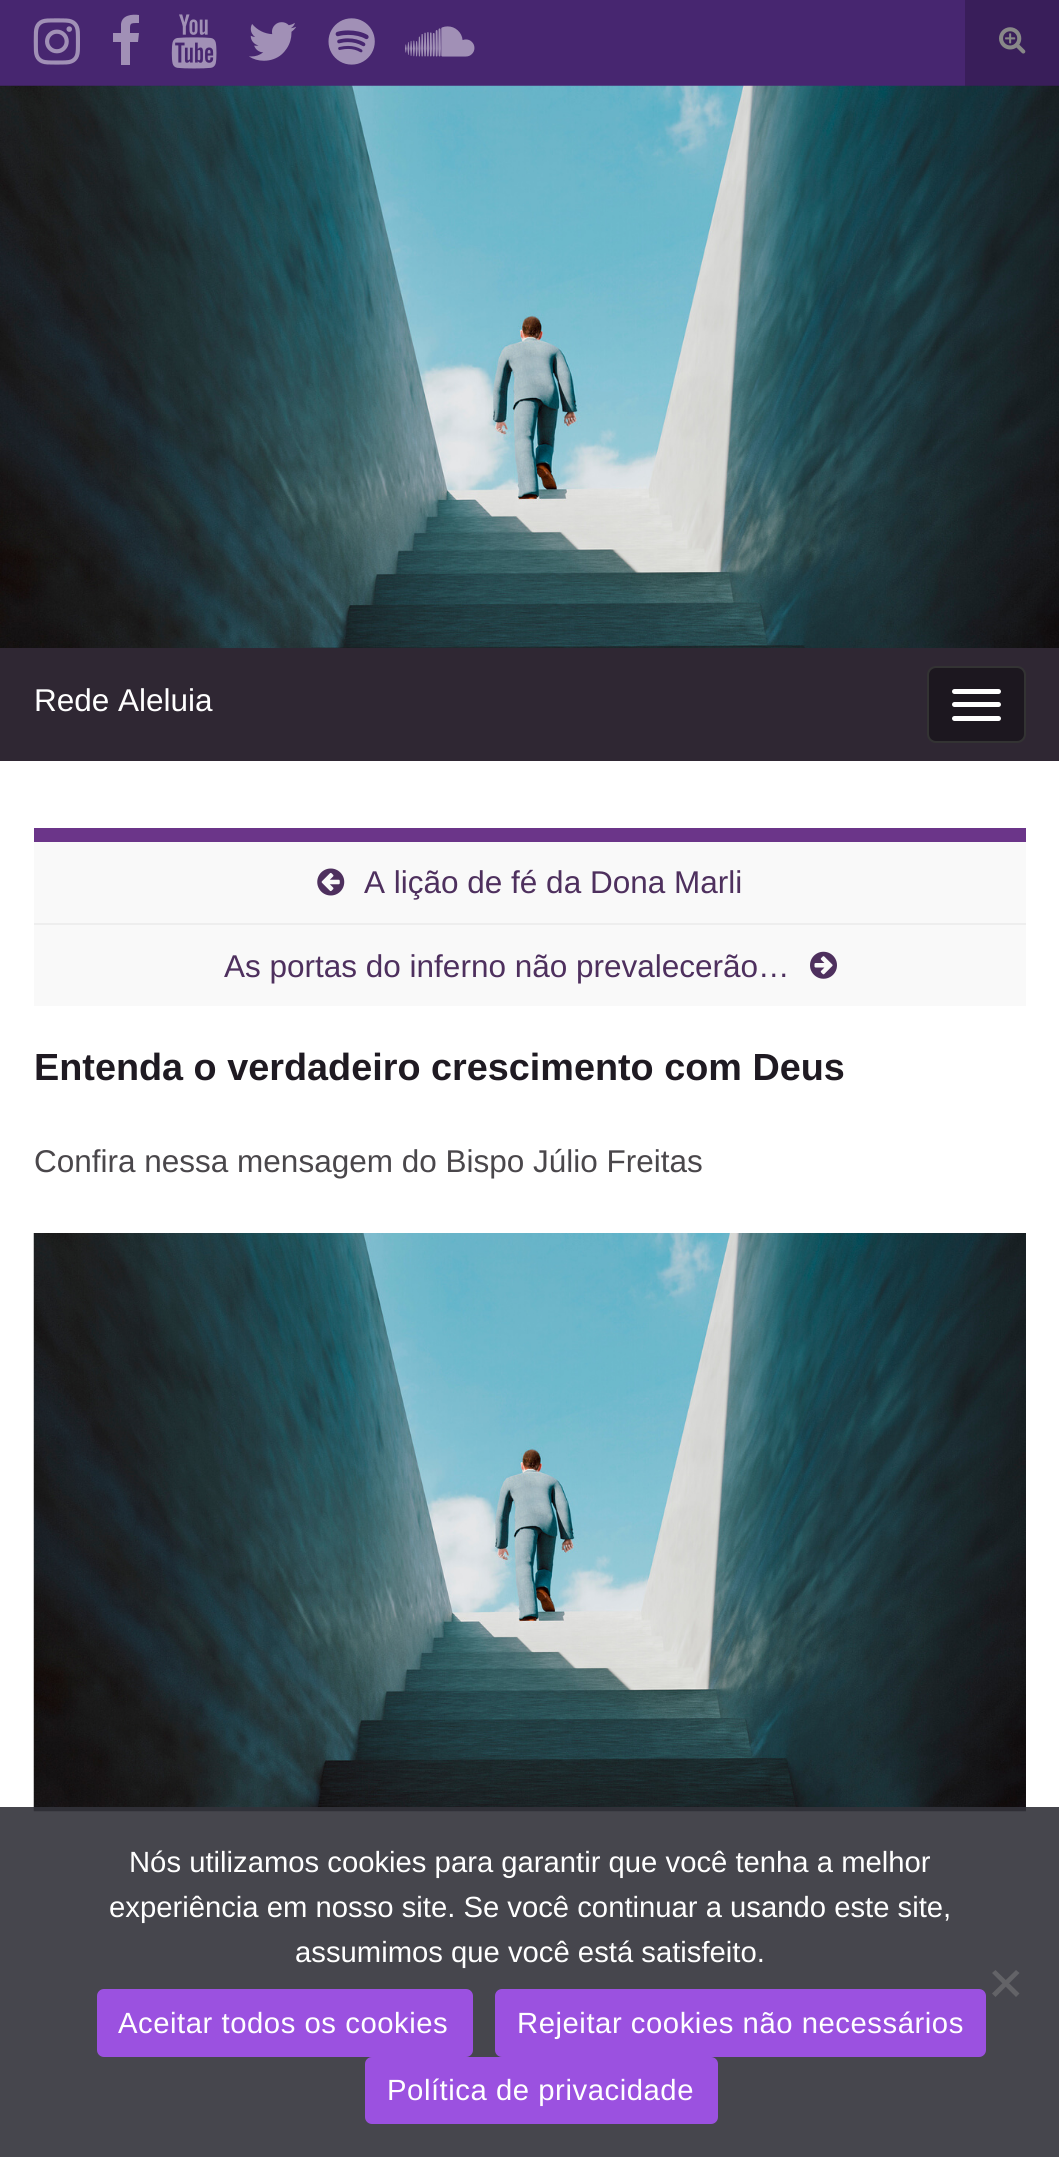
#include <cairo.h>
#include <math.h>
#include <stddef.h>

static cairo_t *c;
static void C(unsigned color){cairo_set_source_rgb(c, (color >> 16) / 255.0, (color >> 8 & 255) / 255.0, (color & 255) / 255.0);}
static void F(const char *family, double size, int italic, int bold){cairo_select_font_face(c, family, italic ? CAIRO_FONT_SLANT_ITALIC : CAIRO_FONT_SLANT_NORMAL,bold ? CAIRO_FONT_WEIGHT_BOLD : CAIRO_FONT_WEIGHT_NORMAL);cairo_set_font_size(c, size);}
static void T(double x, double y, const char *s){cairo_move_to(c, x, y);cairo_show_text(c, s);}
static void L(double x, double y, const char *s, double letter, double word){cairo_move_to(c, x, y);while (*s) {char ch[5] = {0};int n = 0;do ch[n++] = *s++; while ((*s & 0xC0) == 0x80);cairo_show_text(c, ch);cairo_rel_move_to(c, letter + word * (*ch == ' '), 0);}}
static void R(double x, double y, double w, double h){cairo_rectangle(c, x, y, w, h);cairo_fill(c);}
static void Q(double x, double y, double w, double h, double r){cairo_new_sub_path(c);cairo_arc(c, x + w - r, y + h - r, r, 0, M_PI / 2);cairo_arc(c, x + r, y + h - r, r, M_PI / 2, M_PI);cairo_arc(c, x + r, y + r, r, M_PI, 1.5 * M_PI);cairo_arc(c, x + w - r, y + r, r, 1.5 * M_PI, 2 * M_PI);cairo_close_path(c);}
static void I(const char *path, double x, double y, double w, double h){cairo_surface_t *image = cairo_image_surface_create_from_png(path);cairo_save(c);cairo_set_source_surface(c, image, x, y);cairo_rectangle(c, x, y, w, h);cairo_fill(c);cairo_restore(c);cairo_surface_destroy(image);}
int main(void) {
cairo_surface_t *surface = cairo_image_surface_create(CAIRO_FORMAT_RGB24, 1059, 2157);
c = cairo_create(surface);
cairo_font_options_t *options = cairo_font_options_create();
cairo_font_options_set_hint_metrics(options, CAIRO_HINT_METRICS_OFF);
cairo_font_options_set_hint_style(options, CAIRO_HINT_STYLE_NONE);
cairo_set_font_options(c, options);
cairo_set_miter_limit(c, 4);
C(0xffffff);
cairo_paint(c);
C(0x472670);
R(0,0,965,86);
I("1.png",33,18,47,47);
C(0xa190b6);
cairo_new_path(c);
cairo_move_to(c,139,15);
cairo_line_to(c,139,23);
cairo_curve_to(c,129,23,130,23,130,33);
cairo_line_to(c,139,33);
cairo_line_to(c,138,42);
cairo_line_to(c,130,42);
cairo_line_to(c,130,65);
cairo_line_to(c,121,65);
cairo_line_to(c,121,42);
cairo_line_to(c,113,42);
cairo_line_to(c,113,33);
cairo_line_to(c,121,33);
cairo_line_to(c,121,24);
cairo_curve_to(c,122,15,132,14,139,15);
cairo_close_path(c);
cairo_fill(c);
I("2.png",171,14,46,55);
I("3.png",249,22,47,39);
I("4.png",328,18,47,47);
I("5.png",405,26,70,31);
C(0x391e5a);
R(965,0,94,86);
I("6.png",999,27,27,27);
I("7.png",0,85,1059,563);
C(0x2f2733);
R(0,648,1059,113);
F("Liberation Sans",31.5,0,0);
C(0xffffff);
T(34,711,"Rede Aleluia");
C(0x1c171f);
Q(928,667,97,75,8);
cairo_fill_preserve(c);
C(0x333333);
cairo_stroke(c);
C(0xffffff);
Q(952,689,49,5,2.5);
cairo_fill(c);
Q(952,702,49,5,2.5);
cairo_fill(c);
Q(952,716,49,5,2.5);
cairo_fill(c);
C(0xf9f9f9);
R(34,842,992,164);
C(0x6b3589);
R(34,828,992,14);
I("8.png",317,868,28,28);
C(0x4e305e);
T(364,893,"A lição de fé da Dona Marli");
C(0xeeeeee);
R(34,923,992,2);
C(0x4e305e);
T(224,977,"As portas do inferno não prevalecerão…");
I("9.png",810,951,27,28);
F("Liberation Sans",37.8,0,1);
C(0x1f1a22);
T(34,1080,"Entenda o verdadeiro crescimento com Deus");
F("Liberation Sans",31.5,0,0);
C(0x4a474b);
T(34,1172,"Confira nessa mensagem do Bispo Júlio Freitas");
I("10.png",33,1233,993,579);
cairo_set_source_rgba(c,0.196,0.196,0.227,0.9);
R(0,1807,1059,350);
F("Liberation Sans",29.25,0,0);
C(0xffffff);
T(129,1872,"Nós utilizamos cookies para garantir que você tenha a melhor");
T(109,1917,"experiência em nosso site. Se você continuar a usando este site,");
T(295,1962,"assumimos que você está satisfeito.");
C(0x636367);
cairo_new_path(c);
cairo_move_to(c,1016,1970);
cairo_line_to(c,1019.5,1973);
cairo_line_to(c,995.5,1997);
cairo_line_to(c,992,1993.5);
cairo_close_path(c);
cairo_fill(c);
cairo_new_path(c);
cairo_move_to(c,992,1973);
cairo_line_to(c,995.5,1970);
cairo_line_to(c,1019.5,1993.5);
cairo_line_to(c,1016,1997);
cairo_close_path(c);
cairo_fill(c);
C(0x9b51e0);
Q(97,1989,376,68,7);
cairo_fill(c);
C(0xffffff);
L(118,2033,"Aceitar todos os cookies",.55,0);
C(0x9b51e0);
Q(495,1989,491,68,7);
cairo_fill(c);
C(0xffffff);
L(517,2033,"Rejeitar cookies não necessários",.55,0);
C(0x9b51e0);
Q(365,2057,353,67,7);
cairo_fill(c);
C(0xffffff);
L(387,2100,"Política de privacidade",.55,0);
cairo_surface_write_to_png(surface, "o.png");
cairo_font_options_destroy(options);
cairo_destroy(c);
cairo_surface_destroy(surface);
return 0;
}
